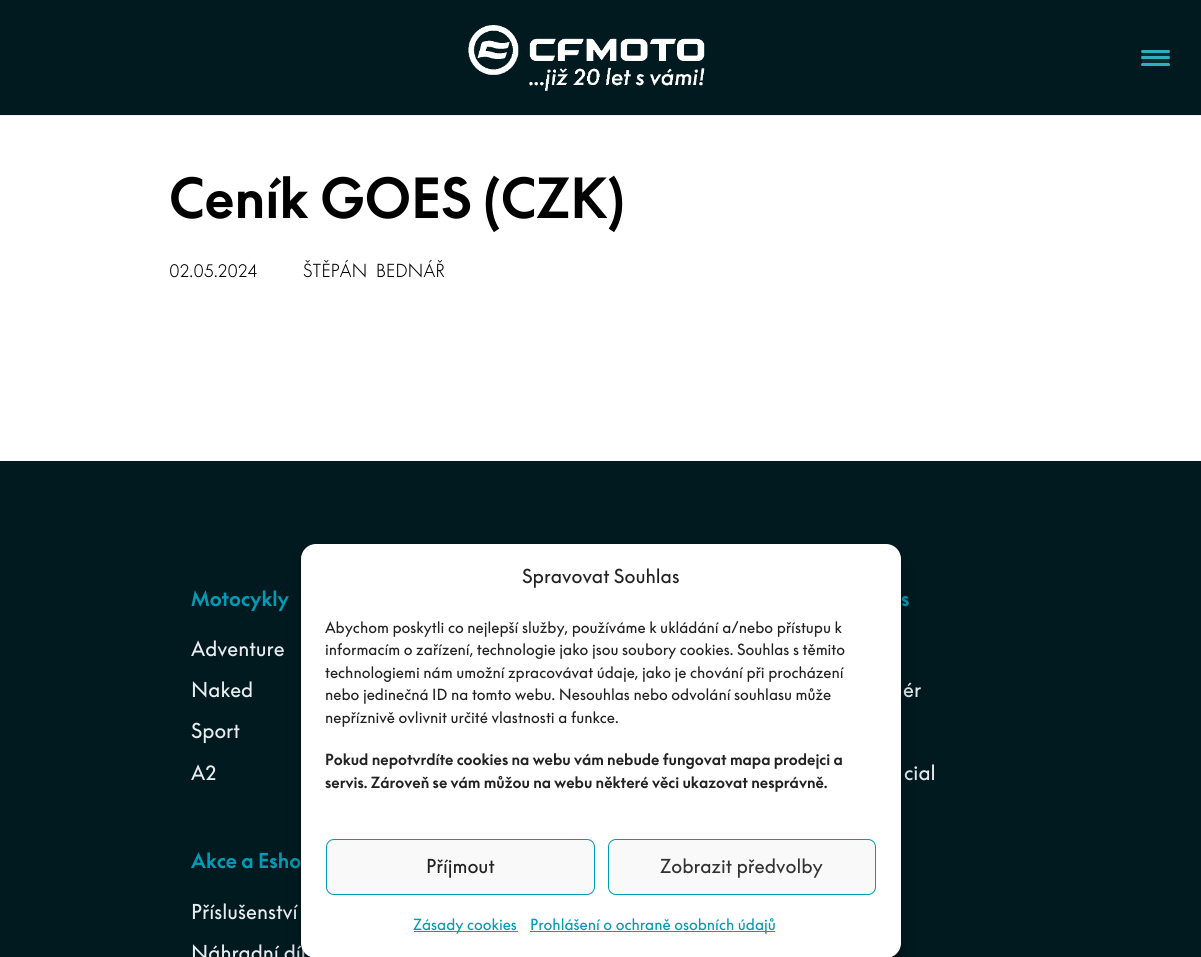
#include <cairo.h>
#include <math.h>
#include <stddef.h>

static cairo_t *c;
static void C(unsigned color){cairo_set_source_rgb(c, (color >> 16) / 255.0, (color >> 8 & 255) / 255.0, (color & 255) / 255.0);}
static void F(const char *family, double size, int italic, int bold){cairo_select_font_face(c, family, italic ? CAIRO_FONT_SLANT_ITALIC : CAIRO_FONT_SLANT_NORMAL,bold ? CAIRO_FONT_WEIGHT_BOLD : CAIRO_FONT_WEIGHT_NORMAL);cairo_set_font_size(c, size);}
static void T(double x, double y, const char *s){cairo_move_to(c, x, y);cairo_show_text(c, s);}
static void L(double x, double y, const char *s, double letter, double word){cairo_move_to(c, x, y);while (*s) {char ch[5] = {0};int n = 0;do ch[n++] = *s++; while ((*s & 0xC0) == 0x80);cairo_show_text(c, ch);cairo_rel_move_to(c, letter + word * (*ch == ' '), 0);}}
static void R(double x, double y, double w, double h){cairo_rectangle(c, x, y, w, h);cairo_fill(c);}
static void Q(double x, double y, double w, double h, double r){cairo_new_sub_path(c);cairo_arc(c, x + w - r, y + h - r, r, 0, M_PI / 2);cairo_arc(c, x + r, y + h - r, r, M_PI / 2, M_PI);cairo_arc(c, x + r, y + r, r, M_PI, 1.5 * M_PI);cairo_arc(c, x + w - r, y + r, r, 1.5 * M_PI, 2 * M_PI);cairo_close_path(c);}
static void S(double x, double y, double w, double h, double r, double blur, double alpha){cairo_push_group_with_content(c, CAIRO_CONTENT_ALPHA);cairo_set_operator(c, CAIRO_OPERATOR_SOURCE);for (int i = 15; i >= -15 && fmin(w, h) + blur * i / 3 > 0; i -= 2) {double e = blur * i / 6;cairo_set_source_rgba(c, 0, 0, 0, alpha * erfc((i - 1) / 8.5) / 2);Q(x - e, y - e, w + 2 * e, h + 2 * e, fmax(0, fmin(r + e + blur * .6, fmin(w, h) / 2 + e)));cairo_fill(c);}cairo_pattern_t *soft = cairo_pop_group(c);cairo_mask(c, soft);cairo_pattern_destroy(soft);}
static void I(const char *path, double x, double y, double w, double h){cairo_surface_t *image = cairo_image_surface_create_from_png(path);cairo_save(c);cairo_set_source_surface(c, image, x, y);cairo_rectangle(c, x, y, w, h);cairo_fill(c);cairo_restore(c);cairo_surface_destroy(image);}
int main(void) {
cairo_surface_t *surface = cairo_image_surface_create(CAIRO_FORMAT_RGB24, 1201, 957);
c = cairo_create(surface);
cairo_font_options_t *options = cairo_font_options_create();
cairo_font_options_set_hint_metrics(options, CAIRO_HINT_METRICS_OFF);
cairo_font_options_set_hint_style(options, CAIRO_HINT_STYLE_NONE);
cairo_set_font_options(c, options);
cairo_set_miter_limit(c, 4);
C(0xffffff);
cairo_paint(c);
C(0x001a20);
R(0,0,1201,115);
I("1.png",468,25,237,66);
C(0x062c33);
Q(1141,50,29,15,7.5);
cairo_fill(c);
C(0x30adc0);
Q(1141,56,29,3,1.5);
cairo_fill(c);
Q(1141,50,29,3,1.5);
cairo_fill(c);
Q(1141,63,29,3,1.5);
cairo_fill(c);
C(0xf1f1f2);
R(0,115,1201,1);
F("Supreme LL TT",53.75,0,1);
C(0x000000);
T(169,218,"Ceník GOES (CZK)");
F("Supreme LL TT Light",17.5,0,0);
T(169,277,"02.05.2024");
L(303,277,"ŠTĚPÁN BEDNÁŘ",0,4);
C(0x001a20);
R(0,461,1201,496);
F("Supreme LL TT",20,0,1);
C(0x009bb4);
T(191,606,"Motocykly");
F("Supreme LL TT",20,0,0);
C(0xe9ecef);
T(191,656,"Adventure");
T(191,697,"Naked");
T(191,738,"Sport");
T(191,780,"A2");
F("Supreme LL TT",20,0,1);
C(0x009bb4);
T(901,606,"s");
F("Supreme LL TT",20,0,0);
C(0xe9ecef);
T(903,697,"ér");
T(904,780,"cial");
F("Supreme LL TT",20,0,1);
C(0x009bb4);
T(191,868,"Akce a Esho");
F("Supreme LL TT",20,0,0);
C(0xe9ecef);
T(191,919,"Příslušenství");
T(191,960,"Náhradní díl");
C(0x000000);
S(301,551,600,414,15,4,.23);
S(301,556,600,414,15,12.5,.19);
C(0xffffff);
Q(301,544,600,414,15);
cairo_fill(c);
F("Supreme LL TT",18.75,0,0);
C(0x222222);
T(522,583,"Spravovat Souhlas");
F("Supreme LL TT",15,0,0);
T(325,633,"Abychom poskytli co nejlepší služby, používáme k ukládání a/nebo přístupu k");
T(325,655,"informacím o zařízení, technologie jako jsou soubory cookies. Souhlas s těmito");
T(325,678,"technologiemi nám umožní zpracovávat údaje, jako je chování při procházení");
T(325,700,"nebo jedinečná ID na tomto webu. Nesouhlas nebo odvolání souhlasu může");
T(325,723,"nepříznivě ovlivnit určité vlastnosti a funkce.");
F("Supreme LL TT",15,0,1);
T(325,765,"Pokud nepotvrdíte cookies na webu vám nebude fungovat mapa prodejci a");
T(325,788,"servis. Zároveň se vám můžou na webu některé věci ukazovat nesprávně.");
C(0xf9f9f9);
Q(326.5,839.5,268,55,7.5);
cairo_fill_preserve(c);
C(0x009bb4);
cairo_set_line_width(c,1);
cairo_stroke(c);
F("Supreme LL TT",18.75,0,0);
C(0x222222);
T(426,873,"Příjmout");
C(0xf9f9f9);
Q(608.5,839.5,267,55,7.5);
cairo_fill_preserve(c);
C(0x009bb4);
cairo_stroke(c);
C(0x333333);
T(660,873,"Zobrazit předvolby");
C(0x009bb4);
R(414,931,104,1);
F("Supreme LL TT",15,0,0);
T(413,930,"Zásady cookies");
R(530,931,245,1);
T(530,930,"Prohlášení o ochraně osobních údajů");
cairo_surface_write_to_png(surface, "o.png");
cairo_font_options_destroy(options);
cairo_destroy(c);
cairo_surface_destroy(surface);
return 0;
}
